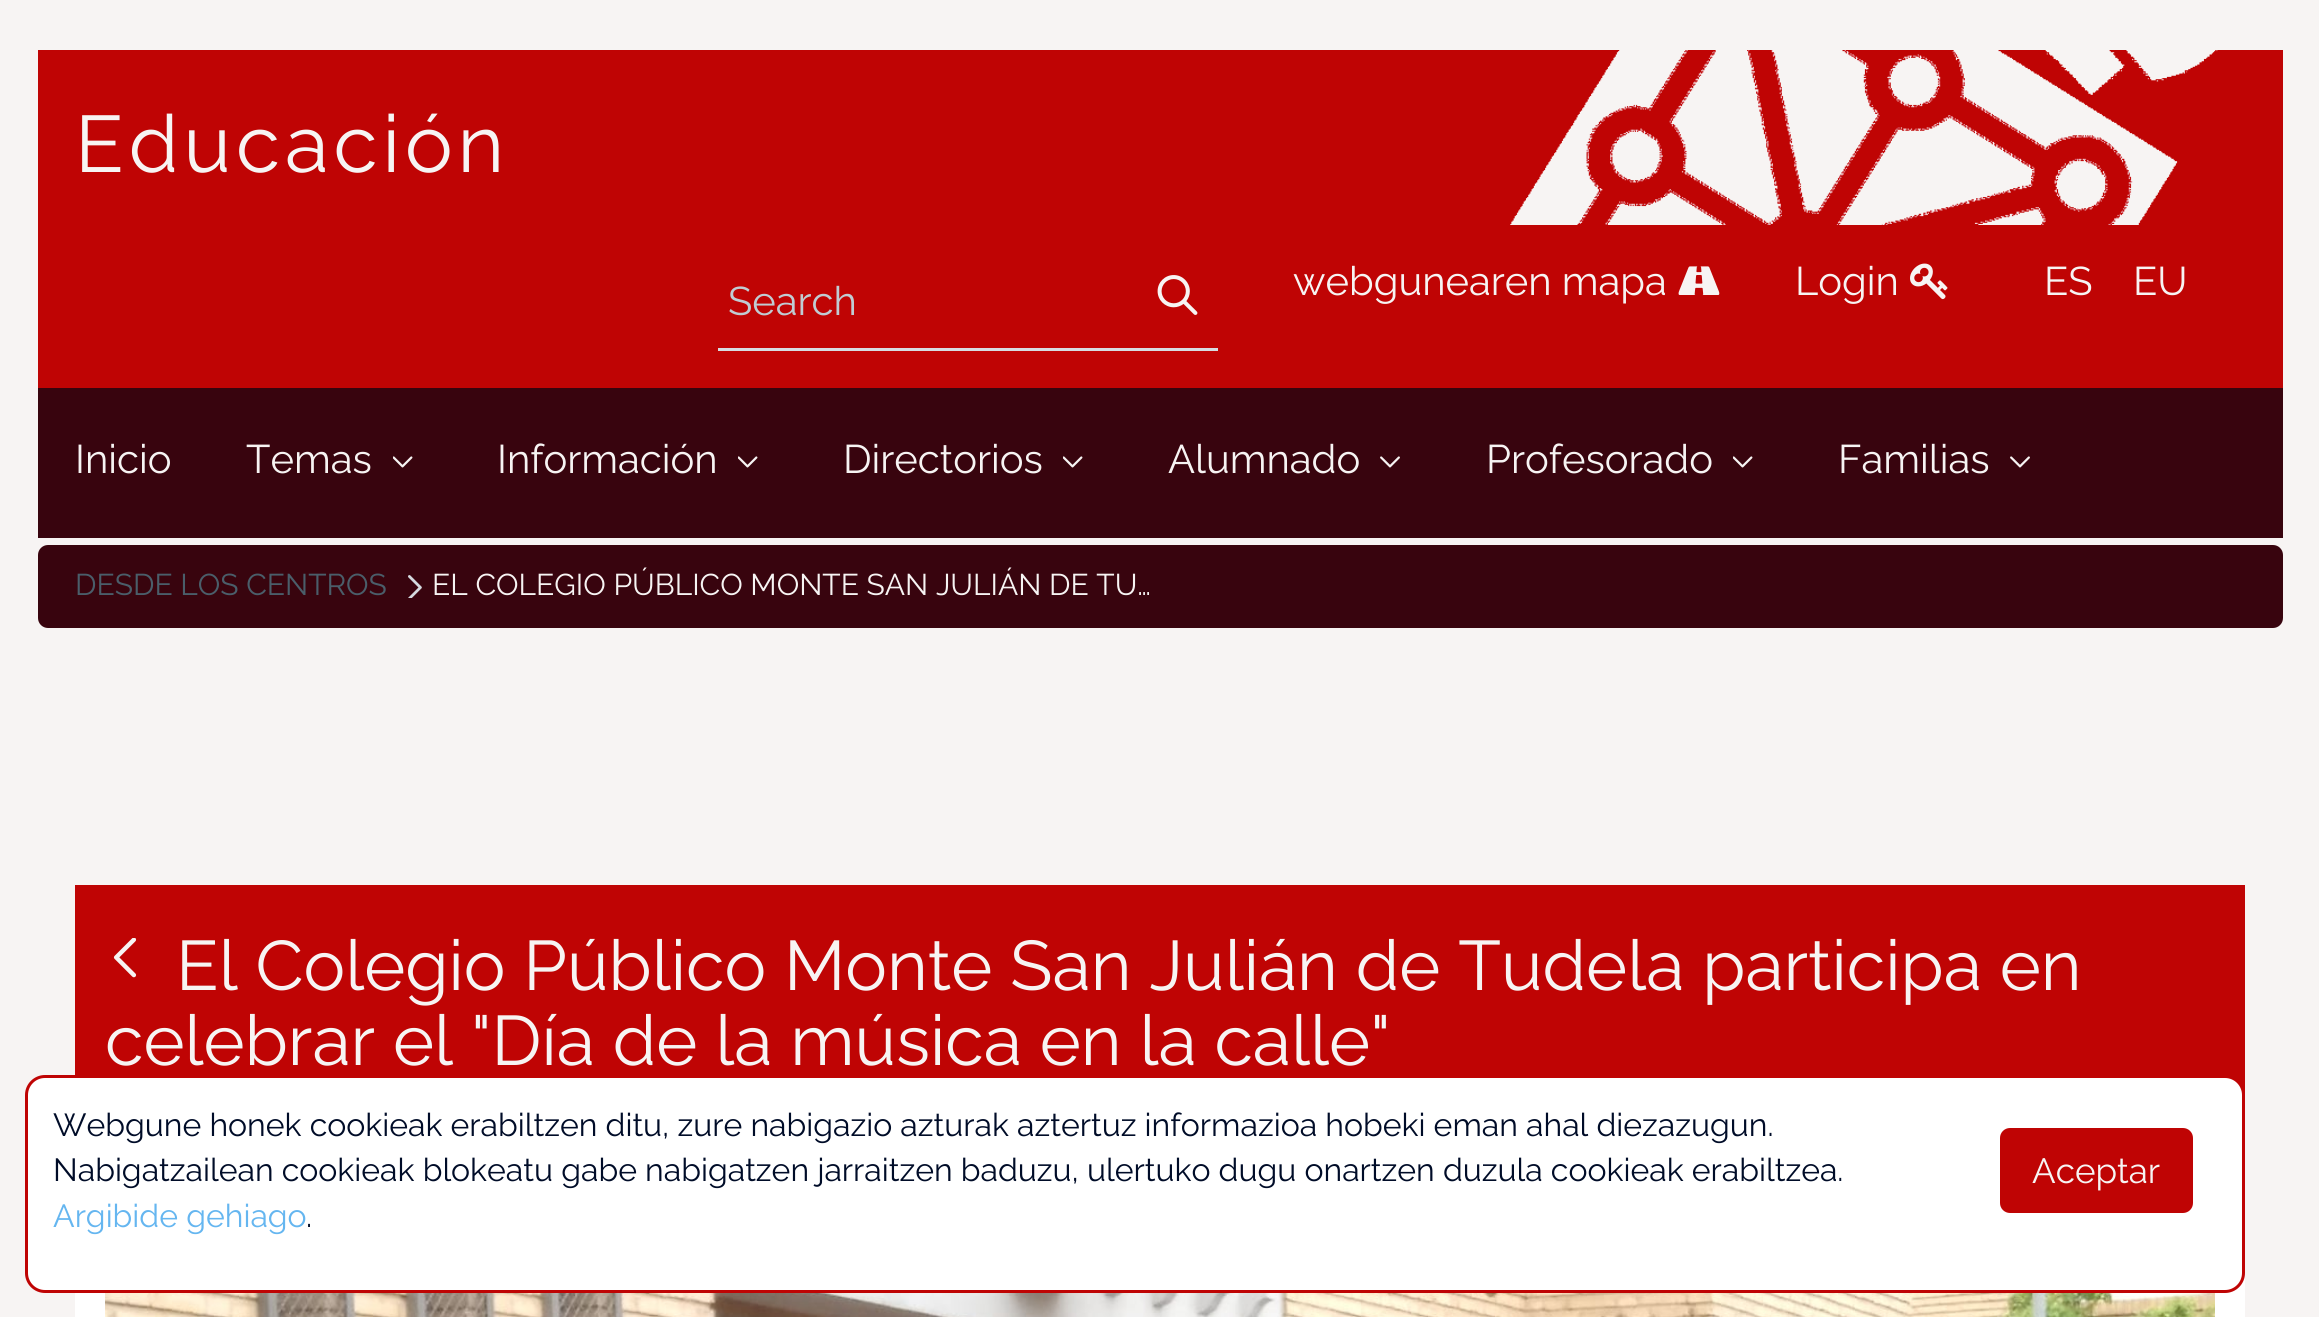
#include <cairo.h>
#include <math.h>
#include <stddef.h>

static cairo_t *c;
static void C(unsigned color){cairo_set_source_rgb(c, (color >> 16) / 255.0, (color >> 8 & 255) / 255.0, (color & 255) / 255.0);}
static void F(const char *family, double size, int italic, int bold){cairo_select_font_face(c, family, italic ? CAIRO_FONT_SLANT_ITALIC : CAIRO_FONT_SLANT_NORMAL,bold ? CAIRO_FONT_WEIGHT_BOLD : CAIRO_FONT_WEIGHT_NORMAL);cairo_set_font_size(c, size);}
static void T(double x, double y, const char *s){cairo_move_to(c, x, y);cairo_show_text(c, s);}
static void L(double x, double y, const char *s, double letter, double word){cairo_move_to(c, x, y);while (*s) {char ch[5] = {0};int n = 0;do ch[n++] = *s++; while ((*s & 0xC0) == 0x80);cairo_show_text(c, ch);cairo_rel_move_to(c, letter + word * (*ch == ' '), 0);}}
static void R(double x, double y, double w, double h){cairo_rectangle(c, x, y, w, h);cairo_fill(c);}
static void Q(double x, double y, double w, double h, double r){cairo_new_sub_path(c);cairo_arc(c, x + w - r, y + h - r, r, 0, M_PI / 2);cairo_arc(c, x + r, y + h - r, r, M_PI / 2, M_PI);cairo_arc(c, x + r, y + r, r, M_PI, 1.5 * M_PI);cairo_arc(c, x + w - r, y + r, r, 1.5 * M_PI, 2 * M_PI);cairo_close_path(c);}
static void I(const char *path, double x, double y, double w, double h){cairo_surface_t *image = cairo_image_surface_create_from_png(path);cairo_save(c);cairo_set_source_surface(c, image, x, y);cairo_rectangle(c, x, y, w, h);cairo_fill(c);cairo_restore(c);cairo_surface_destroy(image);}
int main(void) {
cairo_surface_t *surface = cairo_image_surface_create(CAIRO_FORMAT_RGB24, 2319, 1317);
c = cairo_create(surface);
cairo_font_options_t *options = cairo_font_options_create();
cairo_font_options_set_hint_metrics(options, CAIRO_HINT_METRICS_OFF);
cairo_font_options_set_hint_style(options, CAIRO_HINT_STYLE_NONE);
cairo_set_font_options(c, options);
cairo_set_miter_limit(c, 4);
C(0xf7f4f3);
cairo_paint(c);
C(0xbf0404);
R(38,50,2245,338);
I("1.png",1510,50,708,175);
F("Raleway Thin",80,0,0);
C(0xf7f4f3);
L(75,172,"Educación",5,0);
F("Raleway Thin",40,0,0);
T(1293,295,"webgunearen mapa");
I("2.png",1678,266,42,29);
T(1795,295,"Login");
I("3.png",1910,263,38,37);
T(2044,295,"ES");
T(2133,295,"EU");
C(0xd6dce2);
R(718,348,500,3);
C(0xc0ccd3);
T(728,315,"Search");
I("4.png",1157,275,41,40);
C(0x38040e);
R(38,388,2245,150);
C(0xf7f4f3);
T(75,473,"Inicio");
T(246,473,"Temas");
I("5.png",393,456,20,12);
T(497,473,"Información");
I("5.png",738,456,20,12);
T(843,473,"Directorios");
I("5.png",1063,456,20,12);
T(1168,473,"Alumnado");
I("6.png",1380,456,20,12);
T(1486,473,"Profesorado");
I("5.png",1733,456,20,12);
T(1838,473,"Familias");
I("6.png",2010,456,20,12);
C(0x38040e);
Q(38,545,2245,83,10);
cairo_fill(c);
F("Raleway Thin",30,0,0);
C(0x4a5e6a);
T(75,595,"DESDE LOS CENTROS");
I("7.png",408,575,14,23);
C(0xf7f4f3);
T(432,595,"EL COLEGIO PÚBLICO MONTE SAN JULIÁN DE TU…");
C(0xffffff);
R(75,1273,2170,44);
C(0xbf0404);
R(75,885,2170,210);
I("8.png",113,938,24,40);
F("Raleway Thin",70,0,0);
C(0xf7f4f3);
T(176,990,"El Colegio Público Monte San Julián de Tudela participa en");
T(105,1065,"celebrar el \"Día de la música en la calle\"");
I("9.png",105,1293,2110,24);
C(0xffffff);
Q(26.5,1076.5,2217,215,18.5);
cairo_fill_preserve(c);
C(0xbf0404);
cairo_set_line_width(c,3);
cairo_stroke(c);
F("Raleway Thin",32,0,0);
C(0x000c28);
T(53,1136,"Webgune honek cookieak erabiltzen ditu, zure nabigazio azturak aztertuz informazioa hobeki eman ahal diezazugun.");
T(53,1181,"Nabigatzailean cookieak blokeatu gabe nabigatzen jarraitzen baduzu, ulertuko dugu onartzen duzula cookieak erabiltzea.");
C(0x65b6f0);
T(53,1227,"Argibide gehiago");
C(0x000c28);
T(306,1227,".");
C(0xbf0404);
Q(2000,1128,193,85,10);
cairo_fill(c);
F("Raleway Thin",35,0,0);
C(0xf7f4f3);
T(2032,1183,"Aceptar");
cairo_surface_write_to_png(surface, "o.png");
cairo_font_options_destroy(options);
cairo_destroy(c);
cairo_surface_destroy(surface);
return 0;
}
